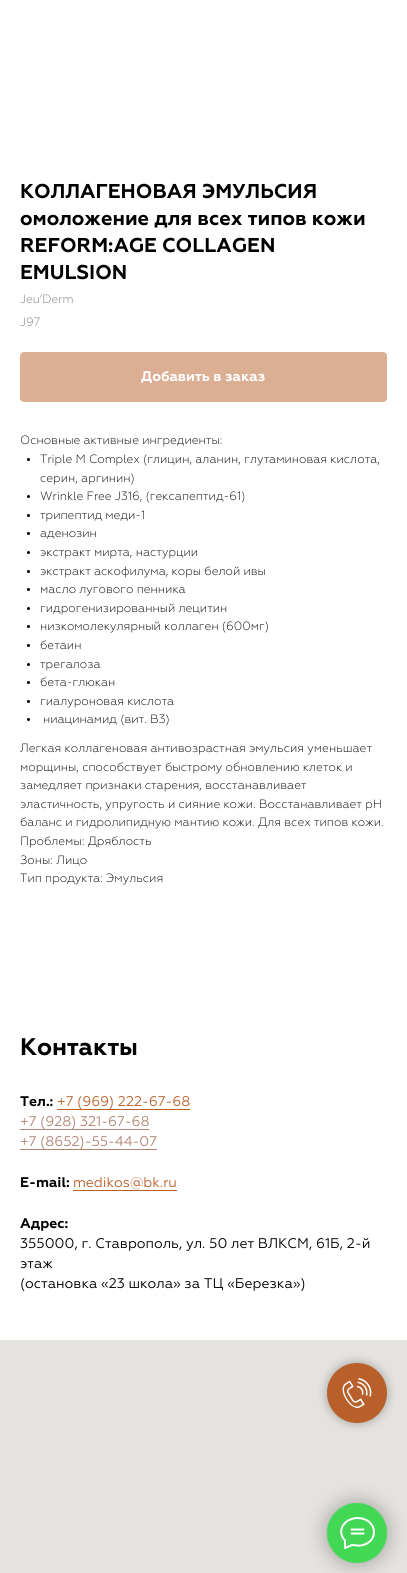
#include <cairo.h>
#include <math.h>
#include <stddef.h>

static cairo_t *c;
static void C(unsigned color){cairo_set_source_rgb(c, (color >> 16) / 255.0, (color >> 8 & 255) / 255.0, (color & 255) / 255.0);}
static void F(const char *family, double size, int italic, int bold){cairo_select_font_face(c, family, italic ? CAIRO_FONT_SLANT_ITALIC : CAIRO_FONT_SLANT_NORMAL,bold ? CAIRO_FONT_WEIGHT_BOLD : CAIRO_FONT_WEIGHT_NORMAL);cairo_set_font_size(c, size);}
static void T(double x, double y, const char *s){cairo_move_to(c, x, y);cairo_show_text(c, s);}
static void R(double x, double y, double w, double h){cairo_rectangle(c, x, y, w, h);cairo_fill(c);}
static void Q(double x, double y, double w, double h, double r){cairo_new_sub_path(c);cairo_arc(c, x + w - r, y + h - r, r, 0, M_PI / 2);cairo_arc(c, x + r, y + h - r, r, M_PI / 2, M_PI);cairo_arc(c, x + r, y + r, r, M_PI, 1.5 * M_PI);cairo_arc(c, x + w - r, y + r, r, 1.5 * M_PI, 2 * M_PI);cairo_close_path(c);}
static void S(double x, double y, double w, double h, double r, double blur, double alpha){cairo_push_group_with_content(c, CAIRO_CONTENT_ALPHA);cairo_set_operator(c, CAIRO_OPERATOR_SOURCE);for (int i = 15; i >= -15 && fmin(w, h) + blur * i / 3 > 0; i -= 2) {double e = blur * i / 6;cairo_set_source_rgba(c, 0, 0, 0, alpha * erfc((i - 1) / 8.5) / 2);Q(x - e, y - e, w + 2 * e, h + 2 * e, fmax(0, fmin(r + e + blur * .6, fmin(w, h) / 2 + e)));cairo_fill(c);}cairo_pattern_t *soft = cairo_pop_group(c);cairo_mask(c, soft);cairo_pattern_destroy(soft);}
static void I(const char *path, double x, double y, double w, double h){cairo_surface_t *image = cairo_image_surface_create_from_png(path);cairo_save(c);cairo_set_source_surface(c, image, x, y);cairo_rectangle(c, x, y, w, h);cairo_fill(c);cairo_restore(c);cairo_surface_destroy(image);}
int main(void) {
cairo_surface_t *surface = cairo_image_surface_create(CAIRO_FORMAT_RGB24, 407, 1573);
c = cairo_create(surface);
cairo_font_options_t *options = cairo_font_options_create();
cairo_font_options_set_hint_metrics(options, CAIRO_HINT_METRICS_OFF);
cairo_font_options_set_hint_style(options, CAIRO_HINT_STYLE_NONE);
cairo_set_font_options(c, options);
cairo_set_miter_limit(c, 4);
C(0xffffff);
cairo_paint(c);
F("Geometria",20,0,1);
C(0x000000);
T(20,198,"КОЛЛАГЕНОВАЯ ЭМУЛЬСИЯ");
T(20,225,"омоложение для всех типов кожи");
T(20,252,"REFORM:AGE COLLAGEN");
T(20,279,"EMULSION");
F("Geometria Light",12,0,0);
C(0x777777);
T(20,303,"Jeu’Derm");
T(20,326,"J97");
C(0xdcaf95);
Q(20,352,367,50,4);
cairo_fill(c);
F("Geometria",14,0,1);
C(0xffffff);
T(141,381,"Добавить в заказ");
F("Geometria Light",12,0,0);
C(0x000000);
T(20,444,"Основные активные ингредиенты:");
cairo_new_path(c);
cairo_arc(c,28.5,459.5,1.5,0,2 * M_PI);
cairo_fill(c);
T(40,463,"Triple M Complex (глицин, аланин, глутаминовая кислота,");
T(40,482,"серин, аргинин)");
cairo_new_path(c);
cairo_arc(c,28.5,496.5,1.5,0,2 * M_PI);
cairo_fill(c);
T(40,500,"Wrinkle Free J316, (гексапептид-61)");
cairo_new_path(c);
cairo_arc(c,28.5,515.5,1.5,0,2 * M_PI);
cairo_fill(c);
T(40,519,"трипептид меди-1");
cairo_new_path(c);
cairo_arc(c,28.5,533.5,1.5,0,2 * M_PI);
cairo_fill(c);
T(40,537,"аденозин");
cairo_new_path(c);
cairo_arc(c,28.5,552.5,1.5,0,2 * M_PI);
cairo_fill(c);
T(40,556,"экстракт мирта, настурции");
cairo_new_path(c);
cairo_arc(c,28.5,571.5,1.5,0,2 * M_PI);
cairo_fill(c);
T(40,575,"экстракт аскофилума, коры белой ивы");
cairo_new_path(c);
cairo_arc(c,28.5,589.5,1.5,0,2 * M_PI);
cairo_fill(c);
T(40,593,"масло лугового пенника");
cairo_new_path(c);
cairo_arc(c,28.5,608.5,1.5,0,2 * M_PI);
cairo_fill(c);
T(40,612,"гидрогенизированный лецитин");
cairo_new_path(c);
cairo_arc(c,28.5,626.5,1.5,0,2 * M_PI);
cairo_fill(c);
T(40,630,"низкомолекулярный коллаген (600мг)");
cairo_new_path(c);
cairo_arc(c,28.5,645.5,1.5,0,2 * M_PI);
cairo_fill(c);
T(40,649,"бетаин");
cairo_new_path(c);
cairo_arc(c,28.5,664.5,1.5,0,2 * M_PI);
cairo_fill(c);
T(40,668,"трегалоза");
cairo_new_path(c);
cairo_arc(c,28.5,682.5,1.5,0,2 * M_PI);
cairo_fill(c);
T(40,686,"бета-глюкан");
cairo_new_path(c);
cairo_arc(c,28.5,701.5,1.5,0,2 * M_PI);
cairo_fill(c);
T(40,705,"гиалуроновая кислота");
cairo_new_path(c);
cairo_arc(c,28.5,719.5,1.5,0,2 * M_PI);
cairo_fill(c);
T(43,723,"ниацинамид (вит. В3)");
T(20,752,"Легкая коллагеновая антивозрастная эмульсия уменьшает");
T(20,771,"морщины, способствует быстрому обновлению клеток и");
T(20,789,"замедляет признаки старения, восстанавливает");
T(20,808,"эластичность, упругость и сияние кожи. Восстанавливает pH");
T(20,826,"баланс и гидролипидную мантию кожи. Для всех типов кожи.");
T(20,845,"Проблемы: Дряблость");
T(20,864,"Зоны: Лицо");
T(20,882,"Тип продукта: Эмульсия");
F("Geometria",24,0,1);
T(20,1055,"Контакты");
F("Geometria",14,0,1);
T(20,1106,"Тел.:");
F("Geometria",14,0,0);
C(0xb85f2a);
T(57,1106,"+7 (969) 222-67-68");
R(57,1109,133,1);
C(0xb18373);
T(20,1126,"+7 (928) 321-67-68");
R(20,1129,129,1);
T(20,1146,"+7 (8652)-55-44-07");
R(20,1149,137,1);
F("Geometria",14,0,1);
C(0x000000);
T(20,1187,"E-mail:");
F("Geometria",14,0,0);
C(0xb85f2a);
T(73,1187,"medikos@bk.ru");
R(73,1190,104,1);
F("Geometria",14,0,1);
C(0x000000);
T(20,1228,"Адрес:");
F("Geometria",14,0,0);
T(20,1248,"355000, г. Ставрополь, ул. 50 лет ВЛКСМ, 61Б, 2-й");
T(20,1268,"этаж");
T(20,1288,"(остановка «23 школа» за ТЦ «Березка»)");
C(0xe5e3df);
R(0,1340,407,233);
C(0x000000);
S(327,1363,60,60,30,5,.3);
C(0xb85f2a);
cairo_arc(c,357,1393,30,0,2 * M_PI);
cairo_fill(c);
I("1.png",342,1378,30,30);
C(0x000000);
S(327,1503,60,60,30,10,.3);
C(0x43d854);
cairo_arc(c,357,1533,30,0,2 * M_PI);
cairo_fill(c);
cairo_new_path(c);
cairo_move_to(c,351.5,1529.5);
cairo_line_to(c,363.5,1529.5);
cairo_move_to(c,351.5,1533.5);
cairo_line_to(c,363.5,1533.5);
cairo_move_to(c,345,1540.5);
cairo_curve_to(c,339.5,1535,340,1527,346,1522);
cairo_curve_to(c,349,1519.5,353.5,1518,357.5,1518);
cairo_curve_to(c,377,1518,380.5,1542,361,1545.5);
cairo_curve_to(c,357,1546,355.5,1545,352,1545);
cairo_line_to(c,345,1548);
cairo_line_to(c,345,1541);
cairo_close_path(c);
C(0xffffff);
cairo_set_line_cap(c,CAIRO_LINE_CAP_ROUND);
cairo_set_line_join(c,CAIRO_LINE_JOIN_ROUND);
cairo_stroke(c);
cairo_surface_write_to_png(surface, "o.png");
cairo_font_options_destroy(options);
cairo_destroy(c);
cairo_surface_destroy(surface);
return 0;
}
